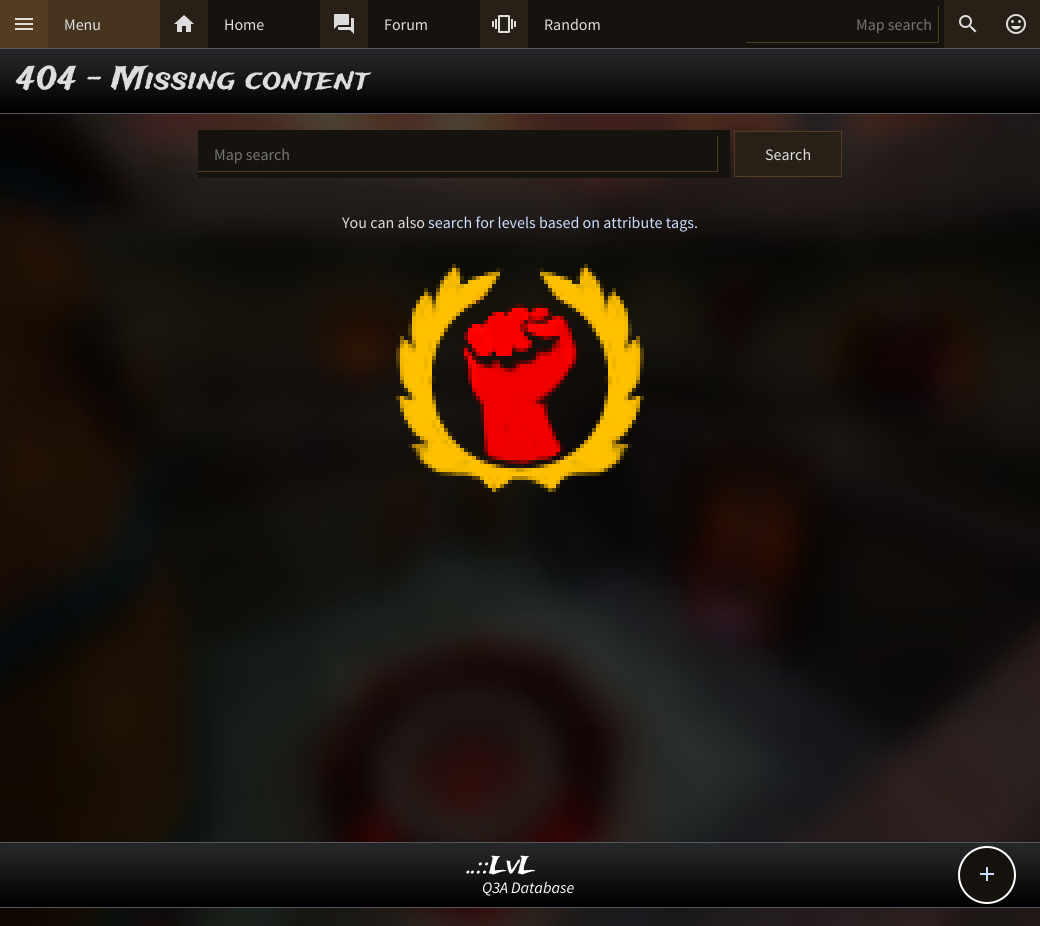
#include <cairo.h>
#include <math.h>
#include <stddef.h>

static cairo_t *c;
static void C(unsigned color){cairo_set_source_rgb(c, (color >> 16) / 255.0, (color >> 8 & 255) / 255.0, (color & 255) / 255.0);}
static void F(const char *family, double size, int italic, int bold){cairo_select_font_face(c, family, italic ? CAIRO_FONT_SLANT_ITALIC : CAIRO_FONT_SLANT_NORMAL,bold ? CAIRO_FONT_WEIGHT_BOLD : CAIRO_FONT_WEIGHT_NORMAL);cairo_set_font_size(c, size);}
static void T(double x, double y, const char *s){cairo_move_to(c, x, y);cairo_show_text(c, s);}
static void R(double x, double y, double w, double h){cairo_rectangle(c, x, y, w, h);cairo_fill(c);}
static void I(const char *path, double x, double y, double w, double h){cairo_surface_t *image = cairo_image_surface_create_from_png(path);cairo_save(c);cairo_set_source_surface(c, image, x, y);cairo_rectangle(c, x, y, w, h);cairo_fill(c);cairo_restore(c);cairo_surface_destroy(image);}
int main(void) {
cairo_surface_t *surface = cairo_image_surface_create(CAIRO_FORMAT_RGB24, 1040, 926);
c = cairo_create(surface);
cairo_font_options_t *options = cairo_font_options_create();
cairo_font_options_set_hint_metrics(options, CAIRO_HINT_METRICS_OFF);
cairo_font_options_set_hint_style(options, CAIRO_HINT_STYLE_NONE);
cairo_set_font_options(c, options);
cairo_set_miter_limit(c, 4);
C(0xffffff);
cairo_paint(c);
C(0x16130f);
R(208,0,736,48);
C(0x543c22);
R(0,0,48,48);
I("1.png",15,18,18,12);
C(0x47341f);
R(48,0,112,48);
F("Source Sans Pro",16,0,0);
C(0xdddddd);
T(64,30,"Menu");
C(0x282016);
R(160,0,48,48);
I("2.png",174,15,20,17);
C(0xdddddd);
T(224,30,"Home");
C(0x282016);
R(320,0,48,48);
I("3.png",334,14,20,20);
C(0xdddddd);
T(384,30,"Forum");
C(0x282016);
R(480,0,48,48);
I("4.png",492,15,24,18);
C(0xdddddd);
T(544,30,"Random");
C(0x543c22);
R(938,6,1,37);
R(746,42,193,1);
C(0x757575);
T(856,30,"Map search");
C(0x282016);
R(944,0,96,48);
I("5.png",959,15,18,18);
I("6.png",1006,14,20,20);
I("7.png",0,49,1040,64);
C(0x56585d);
R(0,48,1040,1);
R(0,113,1040,1);
F("Trade Winds",32,0,0);
C(0xdddddd);
T(16,89,"404 - Missing content");
I("8.png",0,114,1040,812);
C(0x16130f);
R(198,130,532,48);
C(0x543c22);
R(717,136,1,36);
R(198,171,520,1);
F("Source Sans Pro",16,0,0);
C(0x757575);
T(214,160,"Map search");
C(0x282016);
cairo_rectangle(c,734.5,131.5,107,45);
cairo_fill_preserve(c);
C(0x543c22);
cairo_set_line_width(c,1);
cairo_stroke(c);
C(0xdddddd);
T(765,160,"Search");
T(342,228,"You can also");
C(0xccddff);
T(428,228,"search for levels based on attribute tags");
C(0xdddddd);
T(694,228,".");
I("9.png",396,264,248,228);
I("7.png",0,843,1040,64);
C(0x16130f);
cairo_arc(c,987,875,28,0,2 * M_PI);
cairo_fill_preserve(c);
C(0xffffff);
cairo_set_line_width(c,2);
cairo_stroke(c);
I("10.png",980,867,14,14);
C(0x56585d);
R(0,842,1040,1);
R(0,907,1040,1);
F("Trade Winds",24,0,0);
C(0xffffff);
T(468,873,"..::LvL");
F("Source Sans Pro",16,1,0);
T(482,893,"Q3A Database");
cairo_surface_write_to_png(surface, "o.png");
cairo_font_options_destroy(options);
cairo_destroy(c);
cairo_surface_destroy(surface);
return 0;
}
